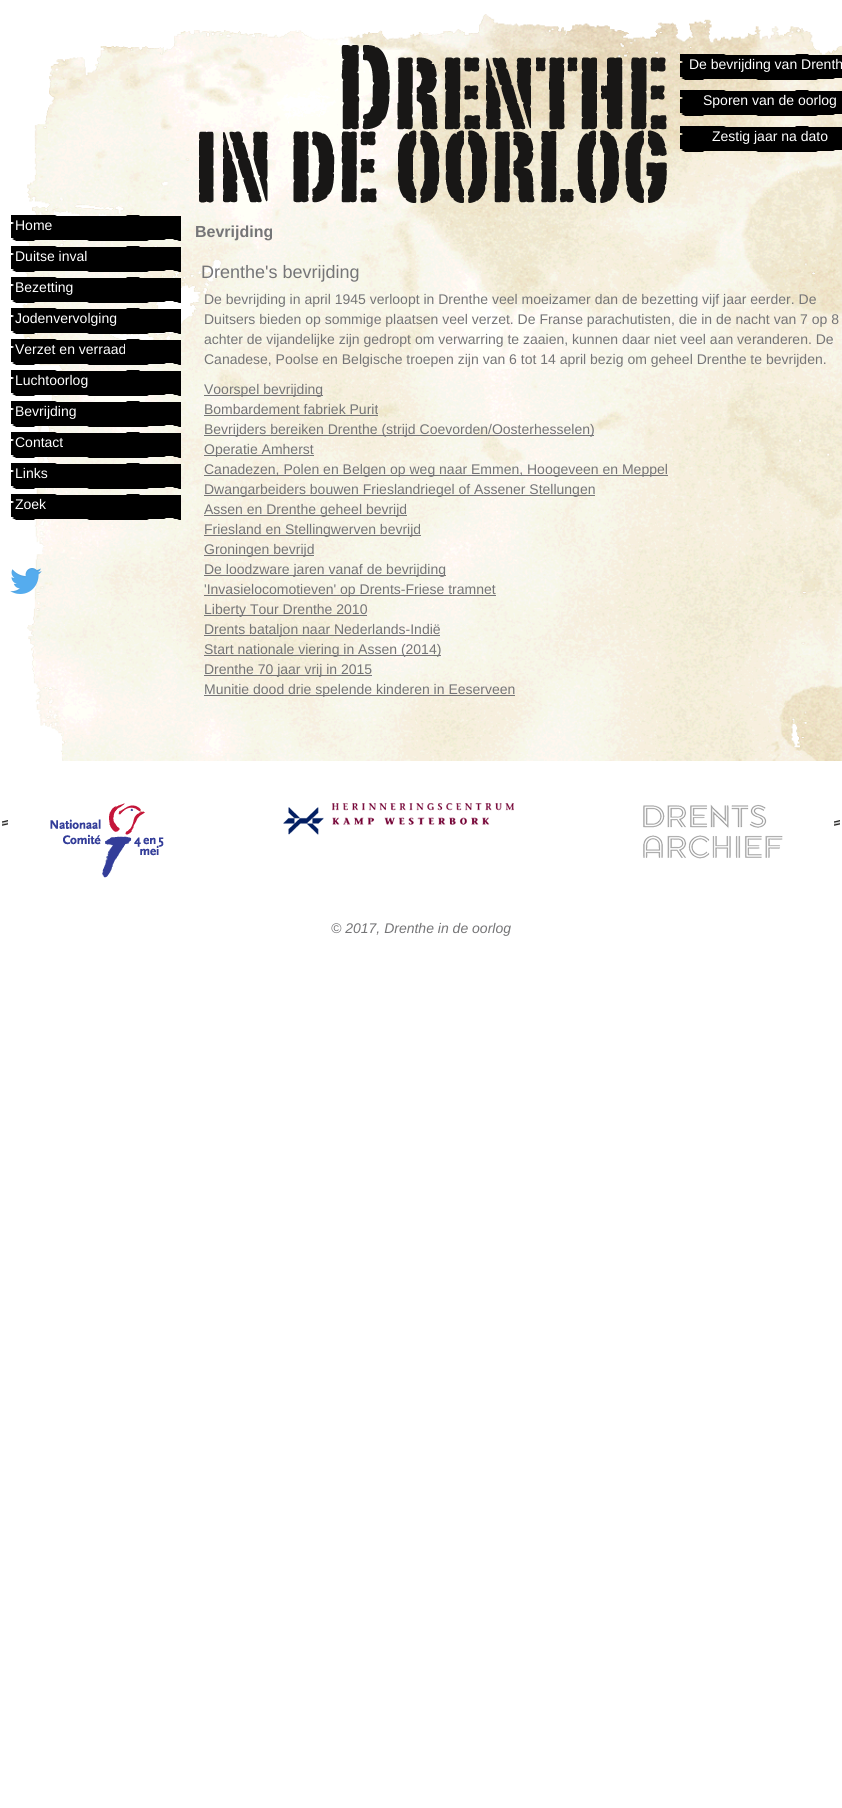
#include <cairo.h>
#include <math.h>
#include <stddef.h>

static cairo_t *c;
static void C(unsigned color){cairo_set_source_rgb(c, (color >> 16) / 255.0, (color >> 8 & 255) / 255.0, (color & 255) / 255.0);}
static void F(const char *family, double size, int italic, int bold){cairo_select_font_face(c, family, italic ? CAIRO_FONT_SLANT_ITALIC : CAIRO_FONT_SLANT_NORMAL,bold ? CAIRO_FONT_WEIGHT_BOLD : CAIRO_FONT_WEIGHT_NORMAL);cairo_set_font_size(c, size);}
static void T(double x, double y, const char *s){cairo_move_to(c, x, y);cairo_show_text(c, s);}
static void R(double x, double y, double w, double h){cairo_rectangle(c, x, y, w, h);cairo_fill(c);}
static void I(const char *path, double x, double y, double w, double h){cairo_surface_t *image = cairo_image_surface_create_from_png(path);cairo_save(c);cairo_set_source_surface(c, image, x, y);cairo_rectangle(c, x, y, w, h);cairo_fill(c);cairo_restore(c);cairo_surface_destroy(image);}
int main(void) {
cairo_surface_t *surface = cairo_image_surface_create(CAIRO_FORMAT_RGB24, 842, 1808);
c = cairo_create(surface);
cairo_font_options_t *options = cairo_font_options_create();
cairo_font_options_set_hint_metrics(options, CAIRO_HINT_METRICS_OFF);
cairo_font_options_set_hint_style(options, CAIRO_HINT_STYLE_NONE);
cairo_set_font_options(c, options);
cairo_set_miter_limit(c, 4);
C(0xffffff);
cairo_paint(c);
I("1.png",22,14,820,747);
I("2.png",341,45,326,85);
I("3.png",199,130,468,73);
I("4.png",680,54,162,26);
F("Liberation Sans",14,0,0);
C(0xffffff);
T(689,69,"De bevrijding van Drenth");
I("5.png",680,90,162,26);
T(703,105,"Sporen van de oorlog");
I("6.png",680,126,162,26);
T(712,141,"Zestig jaar na dato");
I("7.png",11,215,170,26);
T(15,230,"Home");
I("8.png",11,246,170,26);
T(15,261,"Duitse inval");
I("9.png",11,277,170,26);
T(15,292,"Bezetting");
I("10.png",11,308,170,26);
T(15,323,"Jodenvervolging");
I("11.png",11,339,170,26);
T(15,354,"Verzet en verraad");
I("12.png",11,370,170,26);
T(15,385,"Luchtoorlog");
I("13.png",11,401,170,26);
T(15,416,"Bevrijding");
I("14.png",11,432,170,26);
T(15,447,"Contact");
I("15.png",11,463,170,26);
T(15,478,"Links");
I("16.png",11,494,170,26);
T(15,509,"Zoek");
I("17.png",10,568,32,26);
F("Liberation Sans",16,0,1);
C(0x757577);
T(195,237,"Bevrijding");
F("Liberation Sans",18,0,0);
T(201,278,"Drenthe's bevrijding");
F("Liberation Sans",14,0,0);
T(204,304,"De bevrijding in april 1945 verloopt in Drenthe veel moeizamer dan de bezetting vijf jaar eerder. De");
T(204,324,"Duitsers bieden op sommige plaatsen veel verzet. De Franse parachutisten, die in de nacht van 7 op 8");
T(204,344,"achter de vijandelijke zijn gedropt om verwarring te zaaien, kunnen daar niet veel aan veranderen. De");
T(204,364,"Canadese, Poolse en Belgische troepen zijn van 6 tot 14 april bezig om geheel Drenthe te bevrijden.");
R(204,395,119,1);
T(204,394,"Voorspel bevrijding");
T(204,414,"Bombardement fabriek Purit");
R(204,415,174,1);
R(204,435,390,1);
T(204,434,"Bevrijders bereiken Drenthe (strijd Coevorden/Oosterhesselen)");
R(204,455,110,1);
T(204,454,"Operatie Amherst");
R(204,475,464,1);
T(204,474,"Canadezen, Polen en Belgen op weg naar Emmen, Hoogeveen en Meppel");
R(204,495,391,1);
T(204,494,"Dwangarbeiders bouwen Frieslandriegel of Assener Stellungen");
R(204,515,203,1);
T(204,514,"Assen en Drenthe geheel bevrijd");
R(204,535,217,1);
T(204,534,"Friesland en Stellingwerven bevrijd");
R(204,555,110,1);
T(204,554,"Groningen bevrijd");
R(204,575,242,1);
T(204,574,"De loodzware jaren vanaf de bevrijding");
R(204,595,292,1);
T(204,594,"'Invasielocomotieven' op Drents-Friese tramnet");
R(204,615,163,1);
T(204,614,"Liberty Tour Drenthe 2010");
R(204,635,236,1);
T(204,634,"Drents bataljon naar Nederlands-Indië");
R(204,655,237,1);
T(204,654,"Start nationale viering in Assen (2014)");
R(204,675,168,1);
T(204,674,"Drenthe 70 jaar vrij in 2015");
R(204,695,311,1);
T(204,694,"Munitie dood drie spelende kinderen in Eeserveen");
I("18.png",2,820,6,6);
I("18.png",834,820,6,6);
I("19.png",50,803,114,75);
I("20.png",283,803,231,32);
I("21.png",643,804,140,55);
F("Liberation Sans",14,1,0);
T(331,933,"© 2017, Drenthe in de oorlog");
cairo_surface_write_to_png(surface, "o.png");
cairo_font_options_destroy(options);
cairo_destroy(c);
cairo_surface_destroy(surface);
return 0;
}
